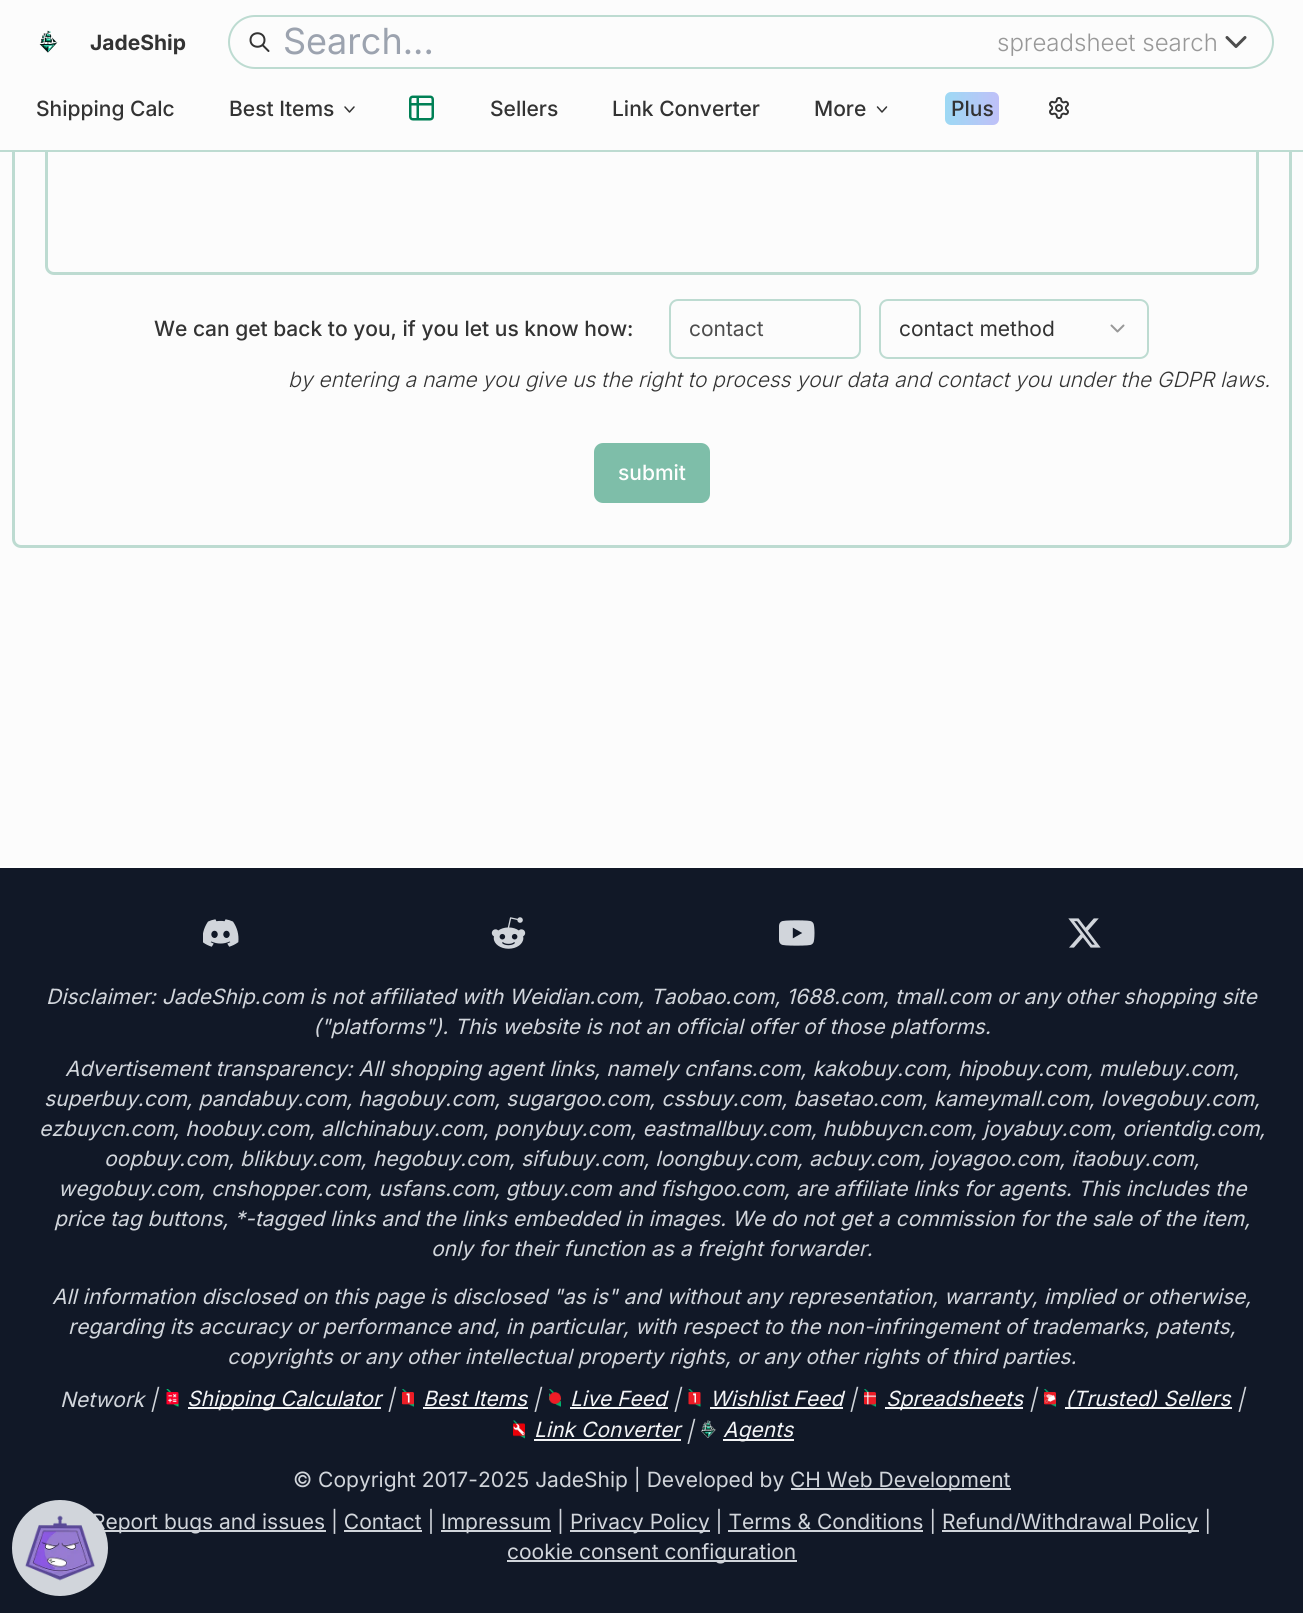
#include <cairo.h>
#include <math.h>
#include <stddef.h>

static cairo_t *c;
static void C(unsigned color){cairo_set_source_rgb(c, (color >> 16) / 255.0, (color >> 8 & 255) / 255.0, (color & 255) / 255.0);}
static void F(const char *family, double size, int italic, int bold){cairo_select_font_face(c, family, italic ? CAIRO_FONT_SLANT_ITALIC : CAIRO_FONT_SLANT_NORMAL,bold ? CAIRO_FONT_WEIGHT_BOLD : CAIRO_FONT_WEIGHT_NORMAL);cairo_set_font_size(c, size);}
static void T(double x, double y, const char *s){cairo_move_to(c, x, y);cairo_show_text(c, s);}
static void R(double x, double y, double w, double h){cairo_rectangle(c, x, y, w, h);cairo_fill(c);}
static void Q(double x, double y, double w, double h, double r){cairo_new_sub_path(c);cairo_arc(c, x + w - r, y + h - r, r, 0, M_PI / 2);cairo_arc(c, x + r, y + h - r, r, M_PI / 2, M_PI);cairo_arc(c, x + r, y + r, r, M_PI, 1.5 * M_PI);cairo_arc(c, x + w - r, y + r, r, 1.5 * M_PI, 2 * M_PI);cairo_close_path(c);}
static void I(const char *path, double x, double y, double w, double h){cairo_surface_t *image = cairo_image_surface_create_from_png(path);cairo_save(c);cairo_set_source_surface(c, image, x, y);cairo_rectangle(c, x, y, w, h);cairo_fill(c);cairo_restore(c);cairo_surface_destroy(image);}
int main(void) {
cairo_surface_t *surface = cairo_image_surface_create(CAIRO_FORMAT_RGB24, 1303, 1613);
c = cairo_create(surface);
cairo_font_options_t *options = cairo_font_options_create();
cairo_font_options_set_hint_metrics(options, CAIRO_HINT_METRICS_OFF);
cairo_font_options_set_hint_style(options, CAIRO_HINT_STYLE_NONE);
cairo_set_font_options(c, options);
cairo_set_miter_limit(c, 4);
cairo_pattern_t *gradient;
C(0xfcfcfc);
cairo_paint(c);
Q(13.5,-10.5,1277,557,7.5);
C(0xbddbd1);
cairo_set_line_width(c,3);
cairo_stroke(c);
Q(46.5,108.5,1211,165,7.5);
cairo_stroke(c);
C(0xfcfcfc);
R(12,0,1280,150);
C(0xbddbd1);
R(0,150,1303,2);
I("1.png",39,30,19,23);
F("Inter",21,0,1);
C(0x333333);
T(90,50,"JadeShip");
Q(229,16,1044,52,26);
C(0xbddbd1);
cairo_set_line_width(c,2);
cairo_stroke(c);
cairo_new_path(c);
cairo_move_to(c,268.5,51);
cairo_line_to(c,262.5,45);
cairo_move_to(c,264.5,40);
cairo_curve_to(c,264.5,49,250.5,49,250.5,40);
cairo_curve_to(c,250.5,31,264.5,31,264.5,40);
cairo_close_path(c);
C(0x333333);
cairo_set_line_cap(c,CAIRO_LINE_CAP_ROUND);
cairo_set_line_join(c,CAIRO_LINE_JOIN_ROUND);
cairo_stroke(c);
F("Inter",36,0,0);
C(0x9ca3af);
T(283,54,"Search...");
F("Inter Light",24,0,0);
C(0x989898);
T(997,51,"spreadsheet search");
cairo_new_path(c);
cairo_move_to(c,1227,37.5);
cairo_line_to(c,1236,46.5);
cairo_line_to(c,1245,37.5);
C(0x4d4d4d);
cairo_set_line_width(c,3);
cairo_stroke(c);
F("Inter Medium",21,0,0);
C(0x333333);
T(36,116,"Shipping Calc");
T(229,116,"Best Items");
cairo_new_path(c);
cairo_move_to(c,345,107);
cairo_line_to(c,349.5,112);
cairo_line_to(c,354,107);
cairo_set_line_width(c,1.5);
cairo_stroke(c);
I("2.png",409,95,25,26);
T(490,116,"Sellers");
T(612,116,"Link Converter");
T(814,116,"More");
cairo_new_path(c);
cairo_move_to(c,877.5,107);
cairo_line_to(c,882,112);
cairo_line_to(c,886.5,107);
cairo_stroke(c);
gradient = cairo_pattern_create_linear(945,108,999,108);
cairo_pattern_add_color_stop_rgba(gradient,0,0.616,0.851,0.957,1);
cairo_pattern_add_color_stop_rgba(gradient,1,0.749,0.753,0.973,1);
cairo_set_source(c,gradient);
cairo_pattern_destroy(gradient);
Q(945,92,54,33,6);
cairo_fill(c);
C(0x333333);
T(951,116,"Plus");
I("3.png",1049,97,20,22);
T(154,336,"We can get back to you, if you let us know how:");
Q(670,300,190,58,8);
C(0xbddbd1);
cairo_set_line_width(c,2);
cairo_set_line_cap(c,CAIRO_LINE_CAP_BUTT);
cairo_set_line_join(c,CAIRO_LINE_JOIN_MITER);
cairo_stroke(c);
F("Inter",21,0,0);
C(0x4d4d4d);
T(689,336,"contact");
Q(880,300,268,58,8);
C(0xbddbd1);
cairo_stroke(c);
C(0x333333);
T(899,336,"contact method");
cairo_new_path(c);
cairo_move_to(c,1111.5,325.5);
cairo_line_to(c,1117.5,331.5);
cairo_line_to(c,1123.5,325.5);
C(0x989898);
cairo_set_line_cap(c,CAIRO_LINE_CAP_ROUND);
cairo_set_line_join(c,CAIRO_LINE_JOIN_ROUND);
cairo_stroke(c);
F("Inter Light",21,1,0);
C(0x333333);
T(288,387,"by entering a name you give us the right to process your data and contact you under the GDPR laws.");
C(0x7ebea9);
Q(594,443,116,60,9);
cairo_fill(c);
F("Inter Medium",21,0,0);
C(0xfefefe);
T(618,480,"submit");
C(0x111827);
R(0,868,1303,745);
C(0xffffff);
R(0,866,1303,2);
I("4.png",203,919,36,28);
I("5.png",491,917,35,32);
I("6.png",779,920,36,26);
I("7.png",1068,918,33,30);
F("Inter",21,1,0);
C(0xd1d5db);
T(46,1004,"Disclaimer: JadeShip.com is not affiliated with Weidian.com, Taobao.com, 1688.com, tmall.com or any other shopping site");
T(313,1034,"(\"platforms\"). This website is not an official offer of those platforms.");
T(65,1076,"Advertisement transparency: All shopping agent links, namely cnfans.com, kakobuy.com, hipobuy.com, mulebuy.com,");
T(44,1106,"superbuy.com, pandabuy.com, hagobuy.com, sugargoo.com, cssbuy.com, basetao.com, kameymall.com, lovegobuy.com,");
T(39,1136,"ezbuycn.com, hoobuy.com, allchinabuy.com, ponybuy.com, eastmallbuy.com, hubbuycn.com, joyabuy.com, orientdig.com,");
T(104,1166,"oopbuy.com, blikbuy.com, hegobuy.com, sifubuy.com, loongbuy.com, acbuy.com, joyagoo.com, itaobuy.com,");
T(58,1196,"wegobuy.com, cnshopper.com, usfans.com, gtbuy.com and fishgoo.com, are affiliate links for agents. This includes the");
T(54,1226,"price tag buttons, *-tagged links and the links embedded in images. We do not get a commission for the sale of the item,");
T(431,1256,"only for their function as a freight forwarder.");
T(52,1304,"All information disclosed on this page is disclosed \"as is\" and without any representation, warranty, implied or otherwise,");
T(68,1334,"regarding its accuracy or performance and, in particular, with respect to the non-infringement of trademarks, patents,");
T(227,1364,"copyrights or any other intellectual property rights, or any other rights of third parties.");
T(60,1407,"Network |");
I("8.png",166,1389,13,18);
C(0xf3f4f6);
R(188,1407,193,2);
T(187,1406,"Shipping Calculator");
C(0xd1d5db);
T(387,1407,"|");
I("9.png",402,1389,12,18);
C(0xf3f4f6);
T(423,1406,"Best Items");
R(423,1407,105,2);
C(0xd1d5db);
T(533,1407,"|");
I("10.png",549,1389,12,18);
C(0xf3f4f6);
T(570,1406,"Live Feed");
R(570,1407,98,2);
C(0xd1d5db);
T(673,1407,"|");
I("11.png",688,1389,13,18);
C(0xf3f4f6);
T(710,1406,"Wishlist Feed");
R(710,1407,133,2);
C(0xd1d5db);
T(849,1407,"|");
I("12.png",864,1389,12,18);
C(0xf3f4f6);
R(885,1407,138,2);
T(886,1406,"Spreadsheets");
C(0xd1d5db);
T(1029,1407,"|");
I("13.png",1044,1389,12,18);
C(0xf3f4f6);
R(1065,1407,167,2);
T(1065,1406,"(Trusted) Sellers");
C(0xd1d5db);
T(1237,1407,"|");
I("14.png",513,1420,12,19);
C(0xf3f4f6);
T(534,1437,"Link Converter");
R(534,1439,147,2);
C(0xd1d5db);
T(686,1439,"|");
I("15.png",701,1420,15,18);
C(0xf3f4f6);
R(723,1439,71,2);
T(723,1437,"Agents");
F("Inter",21,0,0);
C(0xd1d5db);
T(293,1487,"© Copyright 2017-2025 JadeShip | Developed by");
R(791,1488,220,2);
T(790,1487,"CH Web Development");
R(104,1530,222,2);
T(92,1529,"Report bugs and issues | Contact |");
R(441,1530,110,2);
T(441,1529,"Impressum |");
R(570,1530,140,2);
T(570,1529,"Privacy Policy | Terms & Conditions |");
R(942,1530,257,2);
T(942,1529,"Refund/Withdrawal Policy |");
R(344,1530,78,2);
R(728,1530,195,2);
R(507,1560,290,2);
T(507,1559,"cookie consent configuration");
cairo_new_path(c);
cairo_arc(c,60,1548,48,0,2 * M_PI);
cairo_fill(c);
I("16.png",25,1515,70,66);
cairo_surface_write_to_png(surface, "o.png");
cairo_font_options_destroy(options);
cairo_destroy(c);
cairo_surface_destroy(surface);
return 0;
}
